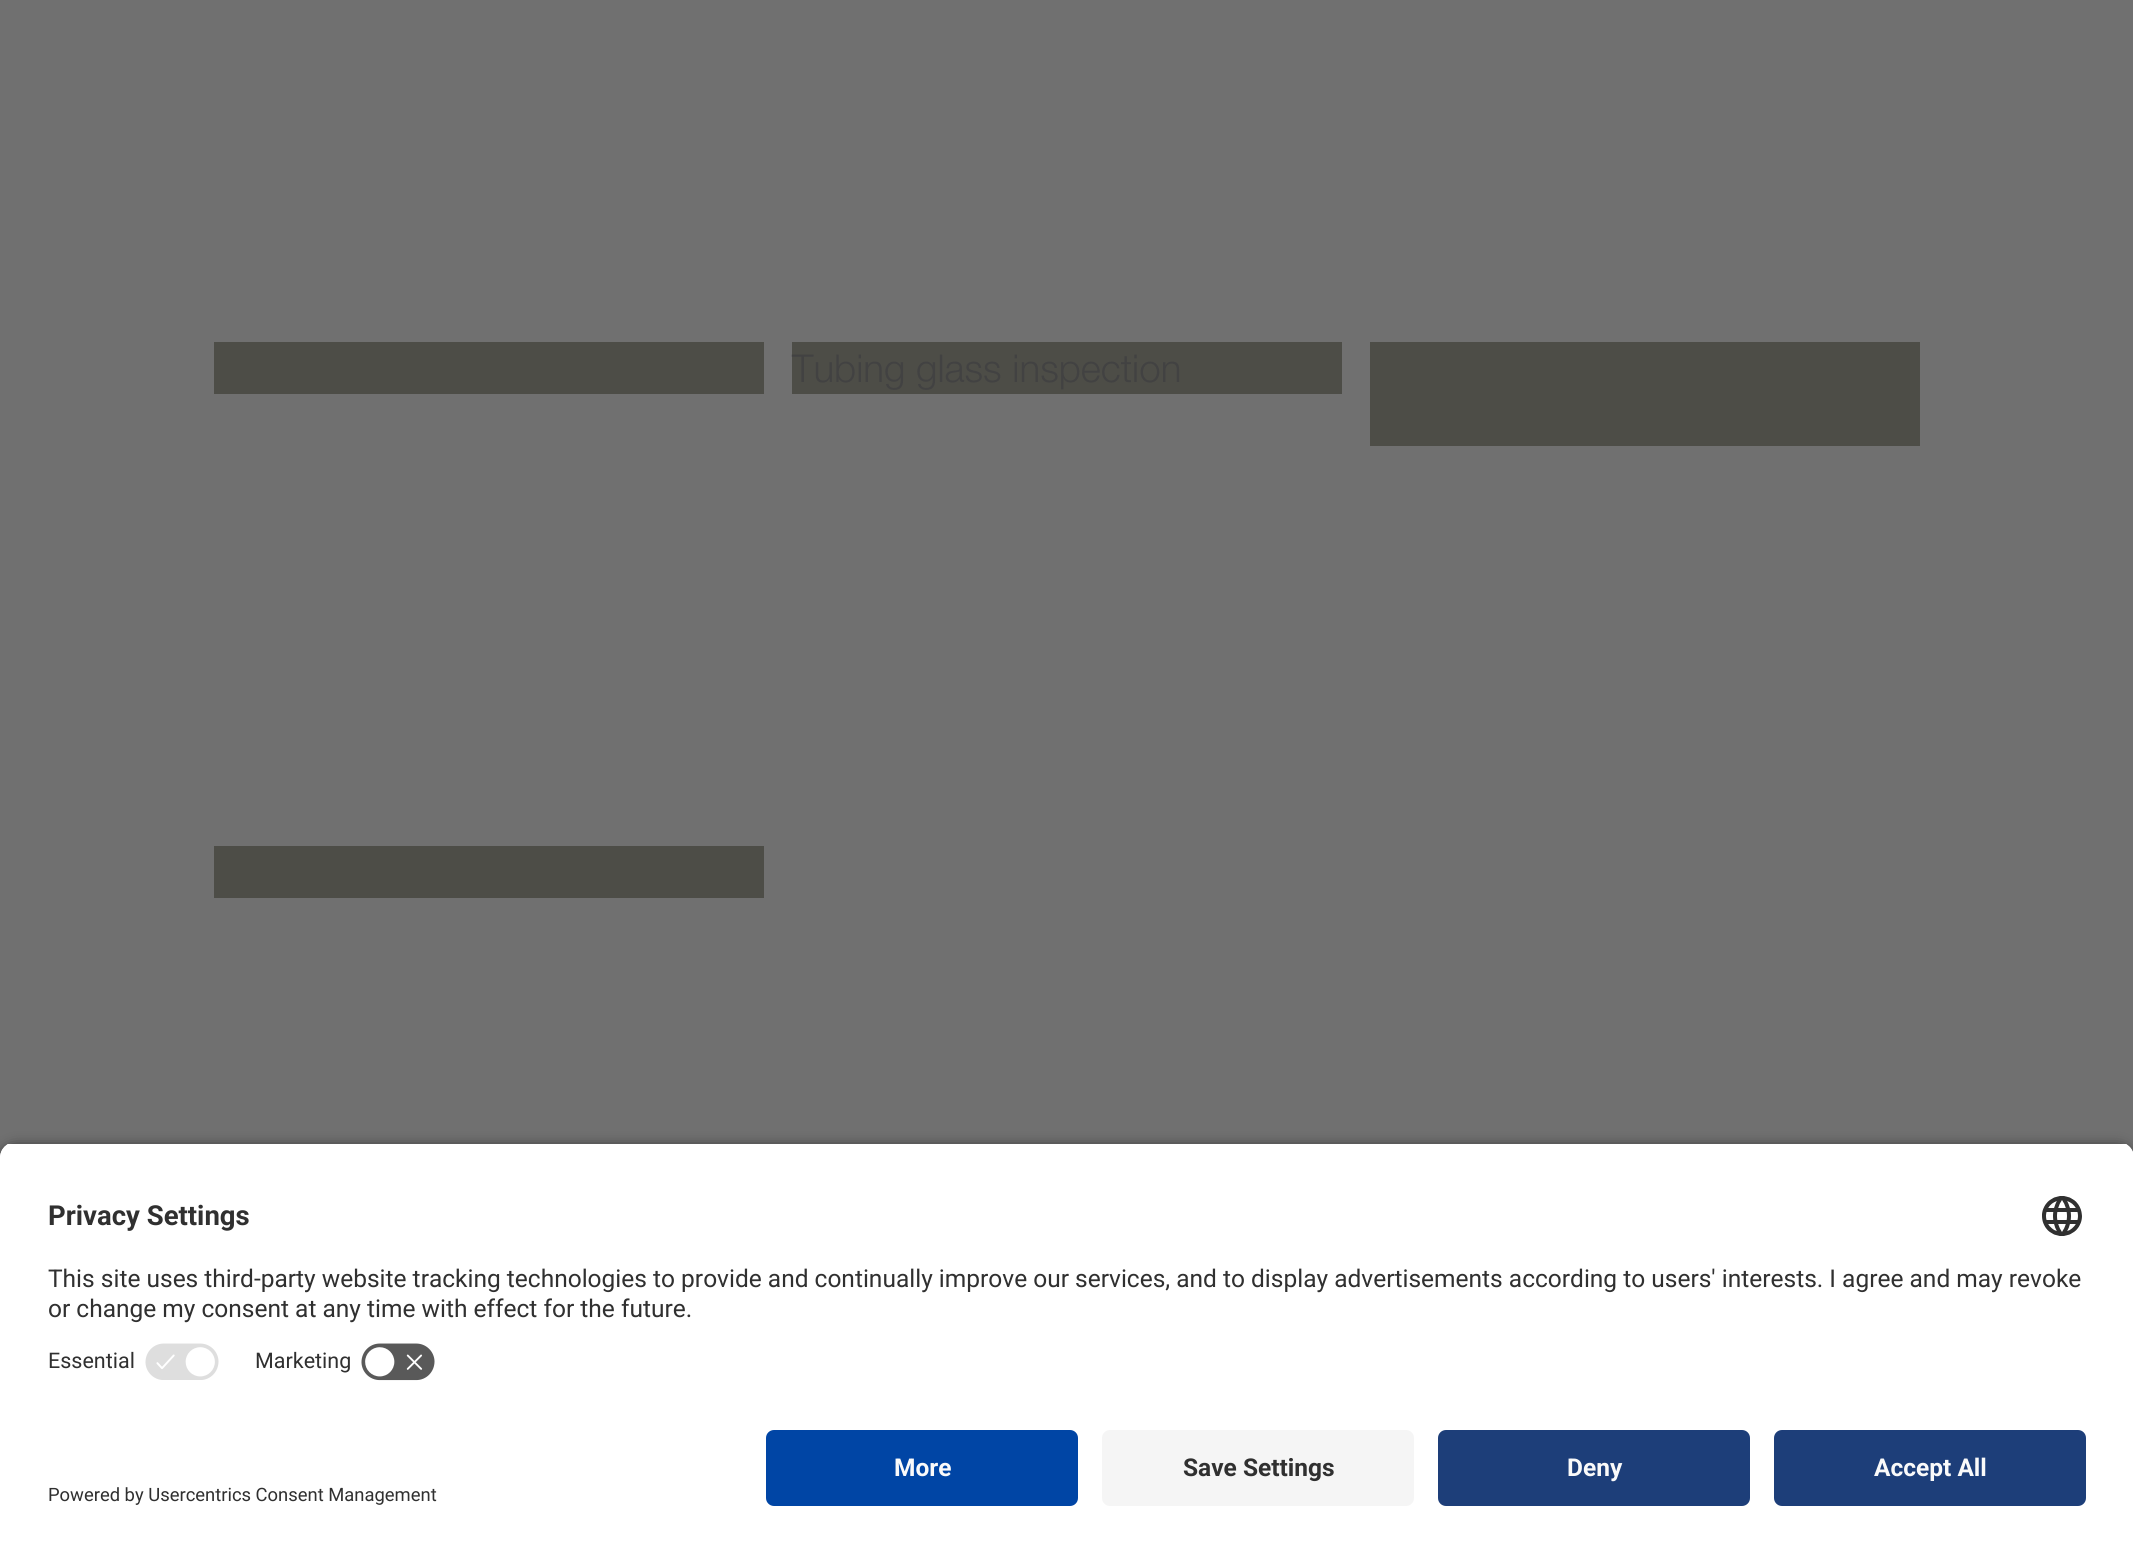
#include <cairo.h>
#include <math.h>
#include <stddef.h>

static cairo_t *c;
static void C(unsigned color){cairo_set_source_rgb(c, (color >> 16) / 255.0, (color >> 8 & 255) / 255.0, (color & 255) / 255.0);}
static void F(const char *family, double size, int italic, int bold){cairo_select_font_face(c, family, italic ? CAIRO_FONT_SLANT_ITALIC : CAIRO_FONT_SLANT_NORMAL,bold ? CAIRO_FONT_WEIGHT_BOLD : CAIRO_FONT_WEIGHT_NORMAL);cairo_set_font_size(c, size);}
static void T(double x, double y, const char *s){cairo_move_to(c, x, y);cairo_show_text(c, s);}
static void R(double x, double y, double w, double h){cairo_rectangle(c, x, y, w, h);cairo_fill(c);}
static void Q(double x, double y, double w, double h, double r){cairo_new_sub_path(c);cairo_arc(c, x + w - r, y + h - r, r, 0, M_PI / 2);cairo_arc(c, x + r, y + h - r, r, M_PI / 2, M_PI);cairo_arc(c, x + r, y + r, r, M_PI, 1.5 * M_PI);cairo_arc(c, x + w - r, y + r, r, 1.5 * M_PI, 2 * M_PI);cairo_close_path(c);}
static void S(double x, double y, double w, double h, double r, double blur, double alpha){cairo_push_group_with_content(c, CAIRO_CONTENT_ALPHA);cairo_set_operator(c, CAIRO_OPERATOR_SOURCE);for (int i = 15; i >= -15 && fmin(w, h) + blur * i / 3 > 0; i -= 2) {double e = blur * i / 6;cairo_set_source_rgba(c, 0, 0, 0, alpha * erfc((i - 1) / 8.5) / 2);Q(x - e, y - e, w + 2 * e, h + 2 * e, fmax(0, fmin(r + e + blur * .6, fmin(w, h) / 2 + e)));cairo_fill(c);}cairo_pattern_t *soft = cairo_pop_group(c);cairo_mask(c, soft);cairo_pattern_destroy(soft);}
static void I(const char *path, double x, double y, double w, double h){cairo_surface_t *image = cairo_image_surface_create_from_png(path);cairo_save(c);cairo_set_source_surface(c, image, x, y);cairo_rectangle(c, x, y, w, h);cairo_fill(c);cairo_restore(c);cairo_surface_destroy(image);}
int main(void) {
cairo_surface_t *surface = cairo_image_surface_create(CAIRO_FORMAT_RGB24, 2133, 1554);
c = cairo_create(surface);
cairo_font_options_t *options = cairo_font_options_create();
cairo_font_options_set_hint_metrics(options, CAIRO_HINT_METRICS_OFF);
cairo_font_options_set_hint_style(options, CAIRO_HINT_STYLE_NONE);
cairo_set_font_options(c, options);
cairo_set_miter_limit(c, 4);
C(0x707070);
cairo_paint(c);
C(0x4d4d47);
R(214,342,550,52);
R(214,846,550,52);
R(792,342,550,52);
F("Helvetica Neue Light",38.5,0,0);
C(0x424242);
T(792,382,"Tubing glass inspection");
C(0x4d4d47);
R(1370,342,550,104);
C(0x000000);
S(0,1148,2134,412,16,7,.8);
cairo_save(c);
cairo_new_path(c);
cairo_move_to(c,16,1142);
cairo_line_to(c,2118,1142);
cairo_curve_to(c,2127,1142,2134,1149,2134,1158);
cairo_line_to(c,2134,1414);
cairo_line_to(c,0,1414);
cairo_line_to(c,0,1158);
cairo_curve_to(c,0,1149,7,1142,16,1142);
cairo_close_path(c);
cairo_clip(c);
C(0xffffff);
R(0,1144,2133,270);
R(0,1144,2133,190);
cairo_restore(c);
F("Roboto",27.5,0,1);
C(0x303030);
T(48,1225,"Privacy Settings");
I("1.png",2042,1196,40,40);
F("Roboto",24.5,0,0);
T(48,1287,"This site uses third-party website tracking technologies to provide and continually improve our services, and to display advertisements according to users' interests. I agree and may revoke");
T(48,1317,"or change my consent at any time with effect for the future.");
F("Roboto",21.5,0,0);
T(48,1368,"Essential");
I("2.png",145,1343,74,37);
T(255,1368,"Marketing");
I("3.png",361,1343,74,38);
C(0xffffff);
R(0,1414,2133,140);
C(0x0045a5);
Q(766,1430,312,76,8);
cairo_fill(c);
F("Roboto",24.5,0,1);
C(0xfafafa);
T(894,1476,"More");
C(0xf5f5f5);
Q(1102,1430,312,76,8);
cairo_fill(c);
C(0x303030);
T(1183,1476,"Save Settings");
C(0x1d3e79);
Q(1438,1430,312,76,8);
cairo_fill(c);
C(0xfafafa);
T(1567,1476,"Deny");
C(0x1d3e79);
Q(1774,1430,312,76,8);
cairo_fill(c);
C(0xfafafa);
T(1874,1476,"Accept All");
F("Roboto",18.4,0,0);
C(0x303030);
T(48,1501,"Powered by Usercentrics Consent Management");
cairo_surface_write_to_png(surface, "o.png");
cairo_font_options_destroy(options);
cairo_destroy(c);
cairo_surface_destroy(surface);
return 0;
}
